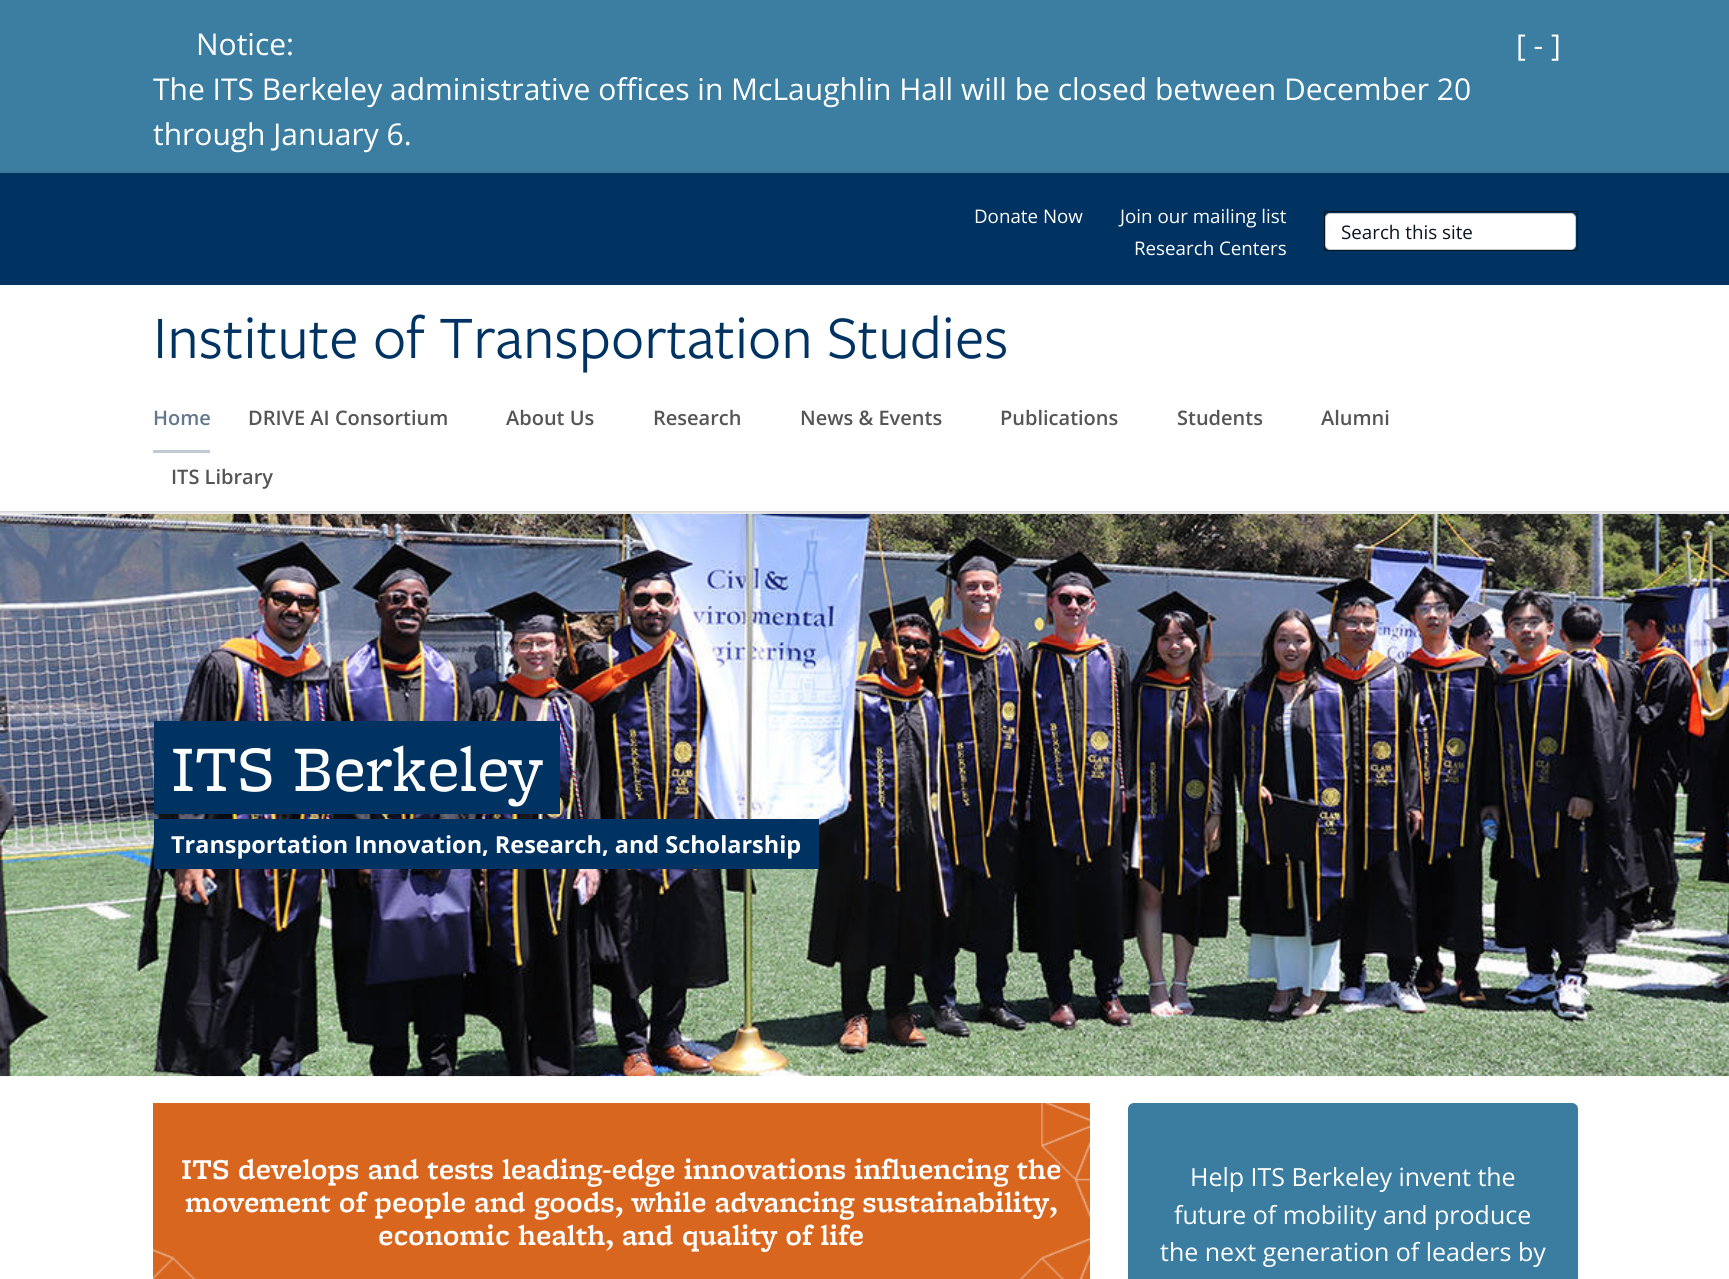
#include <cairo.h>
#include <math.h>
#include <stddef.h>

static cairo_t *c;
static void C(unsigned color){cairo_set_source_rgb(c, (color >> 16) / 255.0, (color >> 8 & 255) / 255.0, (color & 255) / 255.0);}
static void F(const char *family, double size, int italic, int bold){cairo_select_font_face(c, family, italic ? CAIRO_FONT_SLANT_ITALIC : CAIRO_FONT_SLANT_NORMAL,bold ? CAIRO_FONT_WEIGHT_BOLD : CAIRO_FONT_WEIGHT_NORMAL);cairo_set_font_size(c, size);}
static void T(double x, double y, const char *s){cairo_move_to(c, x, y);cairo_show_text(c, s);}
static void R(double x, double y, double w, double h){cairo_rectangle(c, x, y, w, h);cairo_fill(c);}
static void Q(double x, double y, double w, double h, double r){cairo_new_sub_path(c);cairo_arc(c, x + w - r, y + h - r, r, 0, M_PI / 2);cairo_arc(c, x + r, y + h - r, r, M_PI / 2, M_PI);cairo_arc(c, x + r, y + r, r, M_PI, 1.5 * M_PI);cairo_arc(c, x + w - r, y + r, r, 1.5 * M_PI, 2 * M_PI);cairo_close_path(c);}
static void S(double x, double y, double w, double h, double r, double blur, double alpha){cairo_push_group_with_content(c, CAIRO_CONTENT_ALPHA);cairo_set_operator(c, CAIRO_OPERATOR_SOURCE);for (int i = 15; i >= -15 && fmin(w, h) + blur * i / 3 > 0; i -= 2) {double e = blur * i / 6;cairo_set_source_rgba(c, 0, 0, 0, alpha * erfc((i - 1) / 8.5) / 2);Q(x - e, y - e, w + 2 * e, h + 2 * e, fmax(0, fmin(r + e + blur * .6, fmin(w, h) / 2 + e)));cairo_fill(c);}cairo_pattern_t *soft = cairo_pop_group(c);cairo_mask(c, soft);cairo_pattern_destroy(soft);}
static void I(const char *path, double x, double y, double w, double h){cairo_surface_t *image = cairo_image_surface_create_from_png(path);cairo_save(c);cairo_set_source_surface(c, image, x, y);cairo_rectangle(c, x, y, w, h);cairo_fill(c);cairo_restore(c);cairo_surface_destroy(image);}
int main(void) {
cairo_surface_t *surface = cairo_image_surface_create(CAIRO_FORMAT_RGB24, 1729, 1279);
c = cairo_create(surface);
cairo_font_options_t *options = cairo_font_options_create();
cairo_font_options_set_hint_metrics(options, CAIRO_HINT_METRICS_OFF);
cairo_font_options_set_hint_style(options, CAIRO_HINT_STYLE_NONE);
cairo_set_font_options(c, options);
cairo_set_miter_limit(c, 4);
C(0xffffff);
cairo_paint(c);
C(0x3b7ea1);
R(0,0,1729,173);
F("Open Sans",30,0,0);
C(0xffffff);
T(196,55,"Notice:");
T(1516,56,"[ - ]");
T(153,100,"The ITS Berkeley administrative offices in McLaughlin Hall will be closed between December 20");
T(153,145,"through January 6.");
cairo_save(c);
cairo_set_fill_rule(c,CAIRO_FILL_RULE_EVEN_ODD);
cairo_new_path(c);
cairo_move_to(c,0,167);
cairo_line_to(c,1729,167);
cairo_line_to(c,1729,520);
cairo_line_to(c,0,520);
cairo_close_path(c);
cairo_move_to(c,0,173);
cairo_line_to(c,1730,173);
cairo_line_to(c,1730,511);
cairo_line_to(c,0,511);
cairo_close_path(c);
cairo_clip(c);
C(0x000000);
S(0,174,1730,339,0,2,.2);
cairo_restore(c);
C(0x003262);
R(0,173,1729,112);
F("Open Sans",18.75,0,0);
C(0xffffff);
T(974,223,"Donate Now");
T(1120,223,"Join our mailing list");
T(1134,255,"Research Centers");
cairo_rectangle(c,1324.5,211.5,253,39);
C(0x081521);
cairo_set_line_width(c,1);
cairo_stroke(c);
C(0xffffff);
Q(1325.5,213.5,250,36,4.5);
cairo_fill_preserve(c);
C(0xcccccc);
cairo_stroke(c);
C(0x081521);
T(1341,239,"Search this site");
C(0xc0cad3);
R(153,450,57,3);
F("Open Sans SemiBold",20,0,0);
C(0x64788b);
T(153,425,"Home");
C(0x555555);
T(248,425,"DRIVE AI Consortium");
T(506,425,"About Us");
T(653,425,"Research");
T(800,425,"News & Events");
T(1000,425,"Publications");
T(1177,425,"Students");
T(1321,425,"Alumni");
T(171,484,"ITS Library");
F("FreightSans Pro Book",62.5,0,0);
C(0x003262);
T(153,358,"Institute of Transportation Studies");
I("1.png",0,513,1729,564);
cairo_new_path(c);
cairo_move_to(c,189,721);
cairo_line_to(c,542,721);
cairo_line_to(c,542,814);
cairo_line_to(c,189,814);
cairo_line_to(c,560,814);
cairo_line_to(c,560,721);
cairo_close_path(c);
cairo_fill(c);
R(171,721,371,93);
F("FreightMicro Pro",67.5,0,0);
C(0xffffff);
T(171,791,"ITS Berkeley");
C(0x003262);
cairo_new_path(c);
cairo_move_to(c,154,721);
cairo_line_to(c,154,814);
cairo_line_to(c,525,814);
cairo_line_to(c,171,814);
cairo_line_to(c,171,721);
cairo_line_to(c,525,721);
cairo_close_path(c);
cairo_fill(c);
R(171,819,630,50);
F("Open Sans",23.45,0,1);
C(0xffffff);
T(171,853,"Transportation Innovation, Research, and Scholarship");
C(0x003262);
cairo_new_path(c);
cairo_move_to(c,154,819);
cairo_line_to(c,154,869);
cairo_line_to(c,784,869);
cairo_line_to(c,171,869);
cairo_line_to(c,171,819);
cairo_close_path(c);
cairo_fill(c);
cairo_new_path(c);
cairo_move_to(c,189,869);
cairo_line_to(c,819,869);
cairo_line_to(c,819,819);
cairo_line_to(c,801,819);
cairo_line_to(c,801,869);
cairo_close_path(c);
cairo_fill(c);
C(0xd9661f);
R(153,1103,937,176);
I("2.png",153,1102,937,177);
F("FreightMicro Pro SemiBold",30,0,0);
C(0xffffff);
T(181,1179,"ITS develops and tests leading-edge innovations influencing the");
T(185,1212,"movement of people and goods, while advancing sustainability,");
T(378,1245,"economic health, and quality of life");
C(0x3a7da0);
Q(1128,1103,450,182,6);
cairo_fill(c);
F("Open Sans",25,0,0);
C(0xffffff);
T(1190,1186,"Help ITS Berkeley invent the");
T(1174,1224,"future of mobility and produce");
T(1160,1261,"the next generation of leaders by");
cairo_surface_write_to_png(surface, "o.png");
cairo_font_options_destroy(options);
cairo_destroy(c);
cairo_surface_destroy(surface);
return 0;
}
